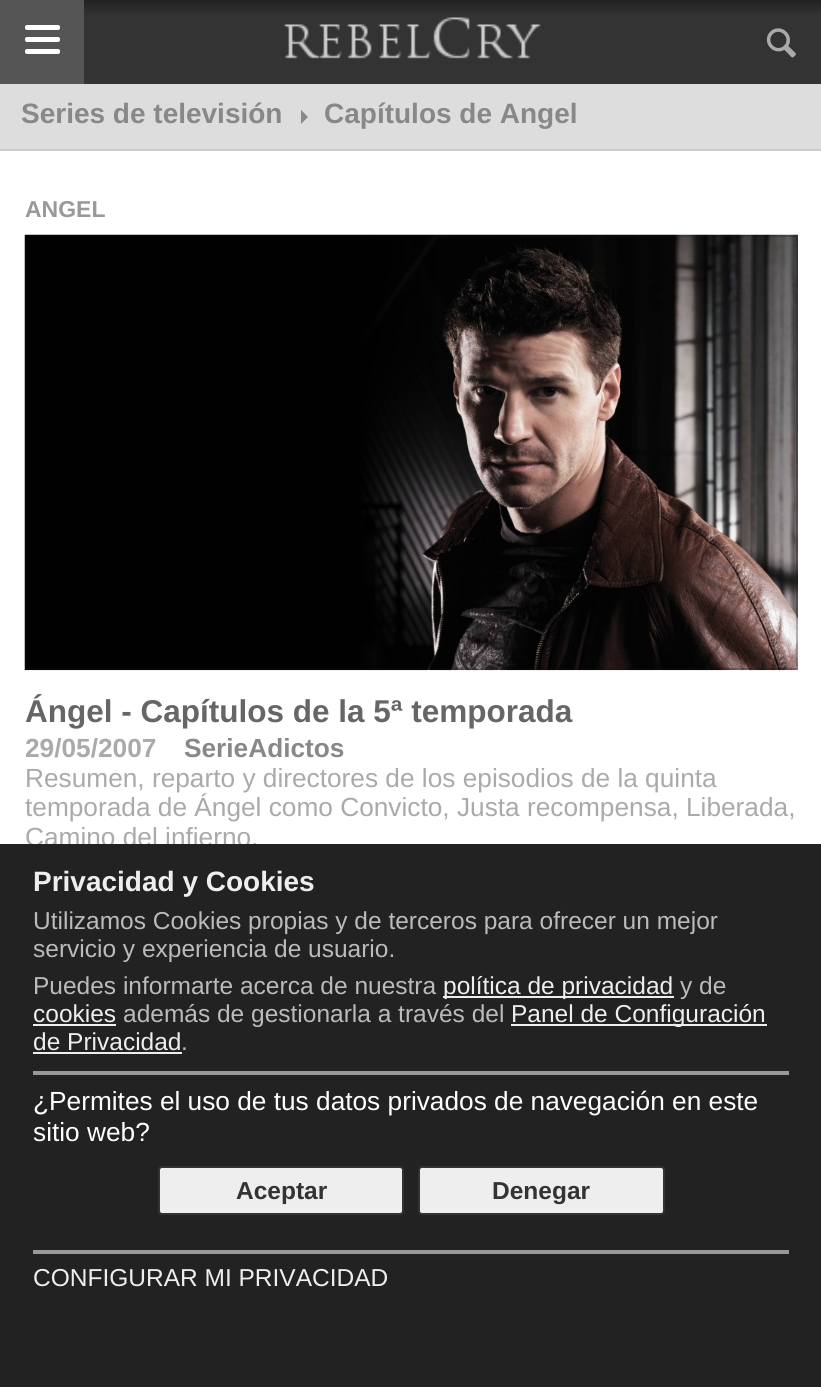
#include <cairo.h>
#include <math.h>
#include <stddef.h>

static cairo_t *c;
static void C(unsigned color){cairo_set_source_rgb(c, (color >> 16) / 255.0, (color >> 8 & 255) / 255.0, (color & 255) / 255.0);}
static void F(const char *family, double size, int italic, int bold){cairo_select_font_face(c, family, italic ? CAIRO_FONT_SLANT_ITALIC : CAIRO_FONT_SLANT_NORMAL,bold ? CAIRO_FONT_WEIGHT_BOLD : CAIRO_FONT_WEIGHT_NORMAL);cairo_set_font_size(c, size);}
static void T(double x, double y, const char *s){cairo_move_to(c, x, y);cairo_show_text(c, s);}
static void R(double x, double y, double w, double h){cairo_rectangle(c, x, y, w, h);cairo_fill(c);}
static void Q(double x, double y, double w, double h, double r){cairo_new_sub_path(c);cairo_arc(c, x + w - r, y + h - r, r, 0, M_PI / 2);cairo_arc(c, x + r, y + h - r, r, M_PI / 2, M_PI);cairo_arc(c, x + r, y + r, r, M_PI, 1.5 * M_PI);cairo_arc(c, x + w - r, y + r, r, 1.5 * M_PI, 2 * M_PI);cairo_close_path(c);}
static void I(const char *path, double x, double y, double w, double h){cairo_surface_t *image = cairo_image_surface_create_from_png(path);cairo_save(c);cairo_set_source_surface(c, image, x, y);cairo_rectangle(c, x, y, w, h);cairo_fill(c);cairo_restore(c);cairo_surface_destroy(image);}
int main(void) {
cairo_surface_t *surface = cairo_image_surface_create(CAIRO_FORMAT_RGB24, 821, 1387);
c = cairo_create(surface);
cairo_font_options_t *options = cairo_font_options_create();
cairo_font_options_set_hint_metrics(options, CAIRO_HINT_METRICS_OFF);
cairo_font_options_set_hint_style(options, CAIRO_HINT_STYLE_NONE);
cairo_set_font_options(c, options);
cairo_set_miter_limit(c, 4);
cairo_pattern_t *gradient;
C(0xffffff);
cairo_paint(c);
gradient = cairo_pattern_create_linear(411,0,411,84);
cairo_pattern_add_color_stop_rgba(gradient,0,0.133,0.133,0.133,1);
cairo_pattern_add_color_stop_rgba(gradient,.2,0.2,0.2,0.2,1);
cairo_set_source(c,gradient);
cairo_pattern_destroy(gradient);
R(84,0,737,84);
C(0x555555);
R(0,0,84,84);
C(0xffffff);
Q(25,37,35,5,2);
cairo_fill(c);
Q(25,25,35,5,2);
cairo_fill(c);
Q(25,49,35,5,2);
cairo_fill(c);
I("1.png",283,17,258,42);
I("2.png",766,28,30,30);
C(0xdddddd);
R(0,84,821,65);
C(0xcccccc);
R(0,149,821,2);
F("Liberation Sans",28,0,1);
C(0x888888);
T(21,123,"Series de televisión");
cairo_new_path(c);
cairo_move_to(c,301,124);
cairo_line_to(c,301,110);
cairo_line_to(c,308,117);
cairo_close_path(c);
cairo_fill(c);
T(324,123,"Capítulos de Angel");
F("Liberation Sans",23,0,1);
C(0x999999);
T(25,217,"ANGEL");
I("3.png",24,234,774,437);
cairo_rectangle(c,26,236,771,433);
cairo_set_source_rgba(c,0.078,0.078,0.078,0.25);
cairo_stroke(c);
F("Liberation Sans",31.5,0,1);
C(0x666666);
T(25,722,"Ángel - Capítulos de la 5ª temporada");
F("Liberation Sans",26.25,0,1);
C(0xaaaaaa);
T(25,757,"29/05/2007");
C(0x888888);
T(184,757,"SerieAdictos");
F("Liberation Sans",26.25,0,0);
C(0xaaaaaa);
T(25,787,"Resumen, reparto y directores de los episodios de la quinta");
T(25,816,"temporada de Ángel como Convicto, Justa recompensa, Liberada,");
T(25,846,"Camino del infierno.");
C(0x222222);
R(0,844,821,543);
F("Liberation Sans",28,0,1);
C(0xeeeeee);
T(33,891,"Privacidad y Cookies");
F("Liberation Sans",24.5,0,0);
C(0xbbbbbb);
T(33,929,"Utilizamos Cookies propias y de terceros para ofrecer un mejor");
T(33,957,"servicio y experiencia de usuario.");
T(33,994,"Puedes informarte acerca de nuestra");
C(0xeeeeee);
R(443,996,231,2);
T(443,994,"política de privacidad");
C(0xbbbbbb);
T(680,994,"y de");
C(0xeeeeee);
T(33,1022,"cookies");
R(33,1024,83,2);
C(0xbbbbbb);
T(123,1022,"además de gestionarla a través del");
C(0xeeeeee);
R(511,1024,256,2);
T(511,1022,"Panel de Configuración");
T(33,1050,"de Privacidad");
R(33,1052,149,2);
C(0xbbbbbb);
T(181,1050,".");
C(0x999999);
R(33,1071,756,4);
F("Liberation Sans",26.25,0,0);
C(0xffffff);
T(33,1110,"¿Permites el uso de tus datos privados de navegación en este");
T(33,1141,"sitio web?");
C(0xeeeeee);
Q(159,1167,244,47,3);
cairo_fill_preserve(c);
C(0x333333);
cairo_stroke(c);
F("Liberation Sans",24.5,0,1);
T(236,1199,"Aceptar");
C(0xeeeeee);
Q(419,1167,245,47,3);
cairo_fill_preserve(c);
C(0x333333);
cairo_stroke(c);
T(492,1199,"Denegar");
C(0x999999);
R(33,1250,756,4);
F("Liberation Sans",24.5,0,0);
C(0xeeeeee);
T(33,1286,"CONFIGURAR MI PRIVACIDAD");
cairo_surface_write_to_png(surface, "o.png");
cairo_font_options_destroy(options);
cairo_destroy(c);
cairo_surface_destroy(surface);
return 0;
}
